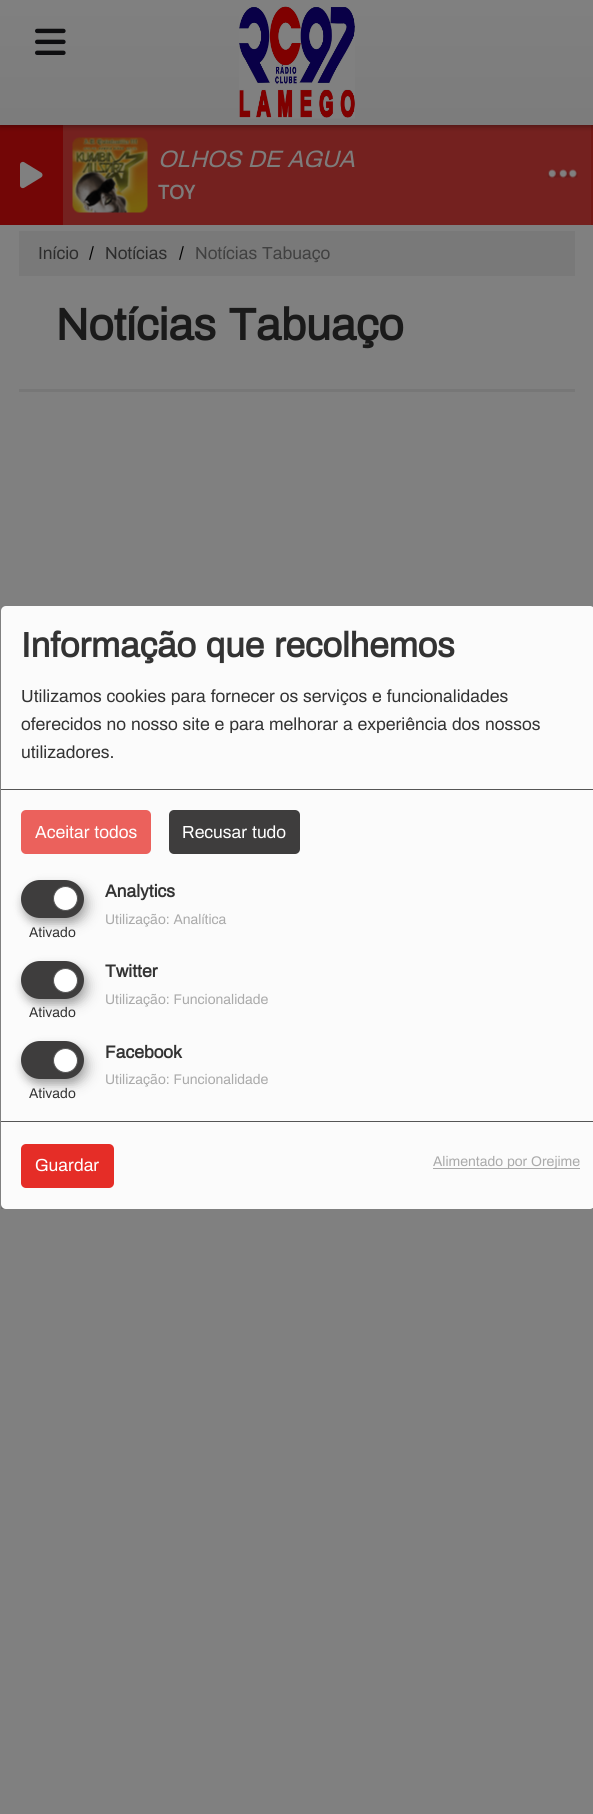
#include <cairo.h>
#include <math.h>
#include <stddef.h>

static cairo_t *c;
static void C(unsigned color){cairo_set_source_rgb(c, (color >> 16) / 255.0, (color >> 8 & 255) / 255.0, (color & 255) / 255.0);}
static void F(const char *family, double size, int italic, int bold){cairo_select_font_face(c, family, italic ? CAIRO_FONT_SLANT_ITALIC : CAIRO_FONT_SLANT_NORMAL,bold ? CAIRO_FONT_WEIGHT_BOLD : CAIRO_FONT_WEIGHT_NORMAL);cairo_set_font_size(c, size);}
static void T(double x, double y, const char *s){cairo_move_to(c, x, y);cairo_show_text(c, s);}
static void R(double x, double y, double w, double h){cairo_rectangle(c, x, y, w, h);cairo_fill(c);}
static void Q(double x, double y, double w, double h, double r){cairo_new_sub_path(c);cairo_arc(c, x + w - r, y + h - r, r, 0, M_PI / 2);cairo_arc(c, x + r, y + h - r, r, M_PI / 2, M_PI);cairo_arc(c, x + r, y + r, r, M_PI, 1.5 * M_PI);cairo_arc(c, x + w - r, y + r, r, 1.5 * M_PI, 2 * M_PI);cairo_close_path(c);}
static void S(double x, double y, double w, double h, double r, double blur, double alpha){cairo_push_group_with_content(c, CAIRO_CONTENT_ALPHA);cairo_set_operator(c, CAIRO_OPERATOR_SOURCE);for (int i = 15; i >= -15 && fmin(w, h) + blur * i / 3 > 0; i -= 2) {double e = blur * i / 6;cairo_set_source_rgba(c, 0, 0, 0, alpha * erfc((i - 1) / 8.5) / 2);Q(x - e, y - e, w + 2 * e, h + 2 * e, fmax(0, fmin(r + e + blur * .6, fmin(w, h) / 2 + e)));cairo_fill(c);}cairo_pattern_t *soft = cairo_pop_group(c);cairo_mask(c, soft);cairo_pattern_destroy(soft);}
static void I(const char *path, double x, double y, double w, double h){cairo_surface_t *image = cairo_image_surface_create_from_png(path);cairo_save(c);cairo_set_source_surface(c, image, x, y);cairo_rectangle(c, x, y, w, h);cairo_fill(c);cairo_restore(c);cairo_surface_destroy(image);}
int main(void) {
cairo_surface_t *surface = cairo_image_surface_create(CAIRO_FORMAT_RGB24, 593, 1814);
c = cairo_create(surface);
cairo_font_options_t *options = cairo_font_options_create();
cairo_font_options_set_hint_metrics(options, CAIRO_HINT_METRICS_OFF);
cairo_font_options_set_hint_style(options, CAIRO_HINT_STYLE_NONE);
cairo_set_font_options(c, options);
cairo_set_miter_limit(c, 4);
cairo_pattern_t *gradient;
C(0x808080);
cairo_paint(c);
C(0x731714);
R(591,125,2,100);
C(0x730606);
R(0,125,63,100);
C(0x74211f);
R(63,125,528,100);
C(0x000000);
S(0,1,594,125,0,3,.4);
gradient = cairo_pattern_create_linear(297,0,297,125);
cairo_pattern_add_color_stop_rgba(gradient,0,0.502,0.502,0.502,1);
cairo_pattern_add_color_stop_rgba(gradient,1,0.486,0.486,0.486,1);
cairo_set_source(c,gradient);
cairo_pattern_destroy(gradient);
R(0,0,593,125);
I("1.png",35,28,31,27);
I("2.png",239,6,116,113);
I("3.png",20,161,23,28);
I("4.png",547,169,31,9);
I("5.png",72,137,76,76);
F("Archivo",23.75,1,0);
C(0x7e7c7b);
T(158,167,"OLHOS DE AGUA");
F("Actor",20,0,1);
T(158,199,"TOY");
C(0x797979);
R(19,231,556,45);
F("Archivo",17.5,0,0);
C(0x2d2d2d);
T(38,259,"Início");
C(0x000000);
T(89,259,"/");
C(0x2d2d2d);
T(105,259,"Notícias");
C(0x000000);
T(179,259,"/");
C(0x414141);
T(195,259,"Notícias Tabuaço");
F("Archivo",45,0,1);
C(0x1a1a1a);
T(56,340,"Notícias Tabuaço");
C(0x777777);
R(19,389,556,3);
cairo_save(c);
cairo_rectangle(c,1,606,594,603);
cairo_clip(c);
C(0x000000);
S(8,613,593,602,5,6,.19);
S(1,611,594,603,5,4,.2);
cairo_restore(c);
C(0xfbfbfb);
Q(1,606,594,603,5);
cairo_fill(c);
C(0x555555);
R(1,789,592,1);
F("Archivo",35,0,1);
C(0x333333);
T(21,657,"Informação que recolhemos");
F("Archivo",17.5,0,0);
T(21,702,"Utilizamos cookies para fornecer os serviços e funcionalidades");
T(21,730,"oferecidos no nosso site e para melhorar a experiência dos nossos");
T(21,758,"utilizadores.");
C(0xeb615c);
Q(21,810,130,44,5);
cairo_fill(c);
C(0xffffff);
T(35,838,"Aceitar todos");
C(0x3e3d3d);
Q(169,810,131,44,5);
cairo_fill(c);
C(0xffffff);
T(182,838,"Recusar tudo");
F("Archivo",17.5,0,1);
C(0x333333);
T(105,897,"Analytics");
C(0x000000);
S(28,886,62,38,19,6,.19);
S(21,885,63,38,19,4,.2);
C(0x3e3d3d);
Q(21,880,63,38,19);
cairo_fill(c);
C(0xffffff);
cairo_arc(c,65.5,898.5,12,0,2 * M_PI);
cairo_fill_preserve(c);
C(0x555555);
cairo_set_line_width(c,1);
cairo_stroke(c);
F("Archivo",14,0,0);
C(0x333333);
T(29,937,"Ativado");
C(0xaaaaaa);
T(105,924,"Utilização: Analítica");
F("Archivo",17.5,0,1);
C(0x333333);
T(105,977,"Twitter");
C(0x000000);
S(28,968,62,37,18.5,6,.19);
S(21,966,63,38,19,4,.2);
C(0x3e3d3d);
Q(21,961,63,38,19);
cairo_fill(c);
C(0xffffff);
cairo_arc(c,65.5,980.5,12,0,2 * M_PI);
cairo_fill_preserve(c);
C(0x555555);
cairo_stroke(c);
F("Archivo",14,0,0);
C(0x333333);
T(29,1017,"Ativado");
C(0xaaaaaa);
T(105,1004,"Utilização: Funcionalidade");
F("Archivo",17.5,0,1);
C(0x333333);
T(105,1058,"Facebook");
C(0x000000);
S(28,1048,62,37,18.5,6,.19);
S(21,1046,63,38,19,4,.2);
C(0x3e3d3d);
Q(21,1041,63,38,19);
cairo_fill(c);
C(0xffffff);
cairo_arc(c,65.5,1060.5,12,0,2 * M_PI);
cairo_fill_preserve(c);
C(0x555555);
cairo_stroke(c);
F("Archivo",14,0,0);
C(0x333333);
T(29,1098,"Ativado");
C(0xaaaaaa);
T(105,1084,"Utilização: Funcionalidade");
C(0x555555);
R(1,1121,592,1);
C(0xe52d27);
Q(21,1144,93,44,5);
cairo_fill(c);
F("Archivo",17.5,0,0);
C(0xffffff);
T(35,1171,"Guardar");
C(0xaaaaaa);
R(433,1168,147,1);
F("Archivo",14,0,0);
T(433,1166,"Alimentado por Orejime");
cairo_surface_write_to_png(surface, "o.png");
cairo_font_options_destroy(options);
cairo_destroy(c);
cairo_surface_destroy(surface);
return 0;
}
